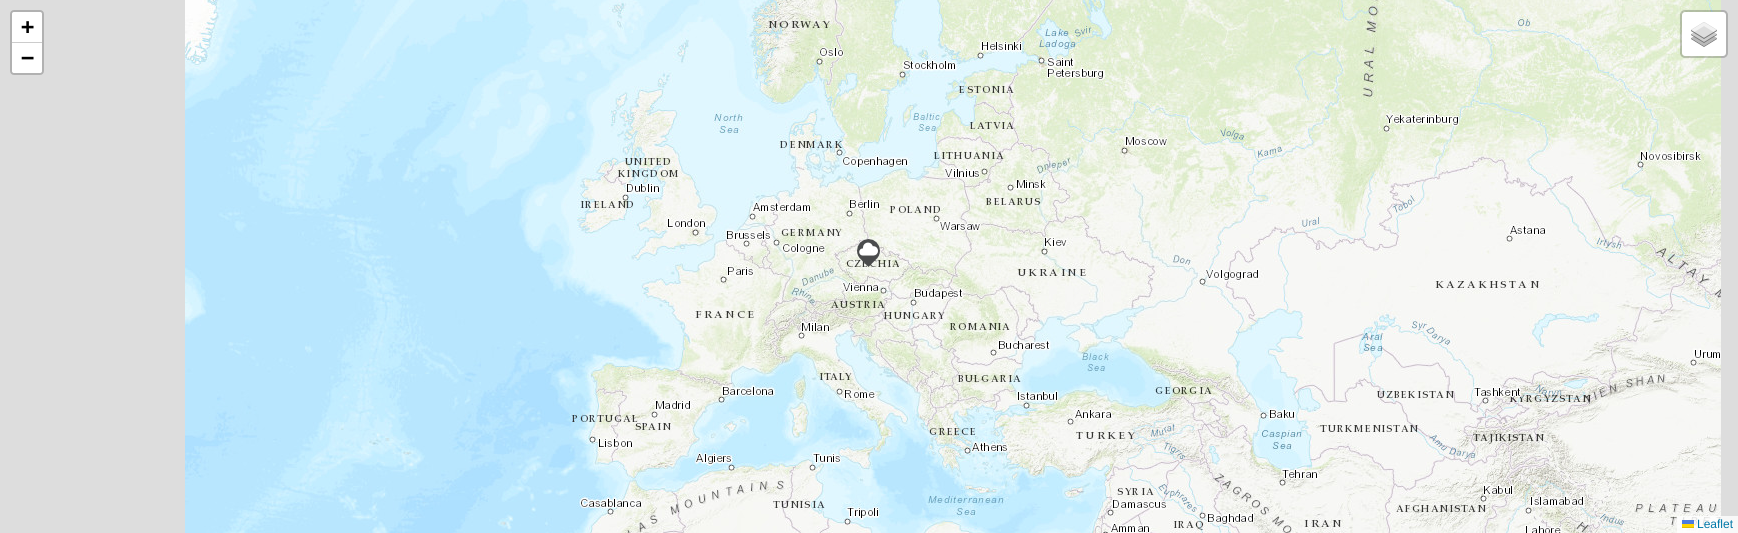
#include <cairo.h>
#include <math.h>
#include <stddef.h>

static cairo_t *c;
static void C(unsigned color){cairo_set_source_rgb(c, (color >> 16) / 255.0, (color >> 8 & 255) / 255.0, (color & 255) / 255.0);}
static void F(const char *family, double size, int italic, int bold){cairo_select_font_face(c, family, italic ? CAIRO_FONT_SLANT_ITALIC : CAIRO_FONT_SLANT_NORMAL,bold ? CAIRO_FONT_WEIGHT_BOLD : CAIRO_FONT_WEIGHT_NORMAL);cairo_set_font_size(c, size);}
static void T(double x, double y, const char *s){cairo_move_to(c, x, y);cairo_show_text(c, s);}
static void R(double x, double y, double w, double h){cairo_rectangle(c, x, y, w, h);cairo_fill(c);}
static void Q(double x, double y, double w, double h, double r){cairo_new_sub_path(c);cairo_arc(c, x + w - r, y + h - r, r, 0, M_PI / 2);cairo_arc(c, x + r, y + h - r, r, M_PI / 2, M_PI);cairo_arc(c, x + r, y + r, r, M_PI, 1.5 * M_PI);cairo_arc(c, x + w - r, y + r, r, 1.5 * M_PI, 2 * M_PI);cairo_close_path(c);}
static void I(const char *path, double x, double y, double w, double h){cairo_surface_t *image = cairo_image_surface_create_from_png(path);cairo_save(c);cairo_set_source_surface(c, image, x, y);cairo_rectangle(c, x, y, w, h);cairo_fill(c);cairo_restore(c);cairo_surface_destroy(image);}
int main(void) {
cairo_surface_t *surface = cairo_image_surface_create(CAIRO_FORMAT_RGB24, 1738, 533);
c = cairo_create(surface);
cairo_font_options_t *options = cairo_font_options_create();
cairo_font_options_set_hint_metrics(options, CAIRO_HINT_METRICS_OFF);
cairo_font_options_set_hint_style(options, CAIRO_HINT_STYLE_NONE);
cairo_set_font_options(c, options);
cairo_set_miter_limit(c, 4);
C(0xdddddd);
cairo_paint(c);
I("1.png",185,0,256,150);
I("2.png",441,0,256,150);
I("3.png",697,0,256,150);
I("4.png",953,0,256,150);
I("5.png",1209,0,256,150);
I("6.png",1465,0,256,150);
I("7.png",185,150,256,256);
I("8.png",441,150,256,256);
I("9.png",697,150,256,256);
I("10.png",953,150,256,256);
I("11.png",1209,150,256,256);
I("12.png",1465,150,256,256);
I("13.png",185,406,256,127);
I("14.png",441,406,256,127);
I("15.png",697,406,256,127);
I("16.png",953,406,256,127);
I("17.png",1209,406,256,127);
I("18.png",1465,406,256,127);
I("19.png",857,239,23,28);
Q(11,11,32,63,3);
C(0xb1b1b1);
cairo_stroke(c);
C(0xffffff);
cairo_new_path(c);
cairo_move_to(c,14,12);
cairo_line_to(c,40,12);
cairo_curve_to(c,41,12,42,13,42,14);
cairo_line_to(c,42,43);
cairo_line_to(c,12,43);
cairo_line_to(c,12,14);
cairo_curve_to(c,12,13,13,12,14,12);
cairo_close_path(c);
cairo_fill(c);
C(0xcccccc);
R(12,42,30,1);
F("DejaVu Sans Mono",22,0,1);
C(0x000000);
T(21,34,"+");
C(0xffffff);
cairo_new_path(c);
cairo_move_to(c,12,43);
cairo_line_to(c,42,43);
cairo_line_to(c,42,71);
cairo_curve_to(c,42,72,41,73,40,73);
cairo_line_to(c,14,73);
cairo_curve_to(c,13,73,12,72,12,71);
cairo_close_path(c);
cairo_fill(c);
C(0x000000);
T(21,65,"−");
C(0xffffff);
Q(1682,12,44,44,3);
cairo_fill(c);
Q(1681,11,46,46,4);
cairo_set_source_rgba(c,0,0,0,0.2);
cairo_stroke(c);
I("20.png",1691,22,26,25);
cairo_set_source_rgba(c,1,1,1,0.8);
R(1677,516,61,17);
F("Liberation Sans",12,0,0);
C(0x0078a8);
T(1697,528,"Leaflet");
C(0x4c7be1);
R(1682,520,12,4);
C(0xffd500);
R(1682,524,12,3);
C(0xe0bc00);
R(1682,527,12,1);
cairo_surface_write_to_png(surface, "o.png");
cairo_font_options_destroy(options);
cairo_destroy(c);
cairo_surface_destroy(surface);
return 0;
}
